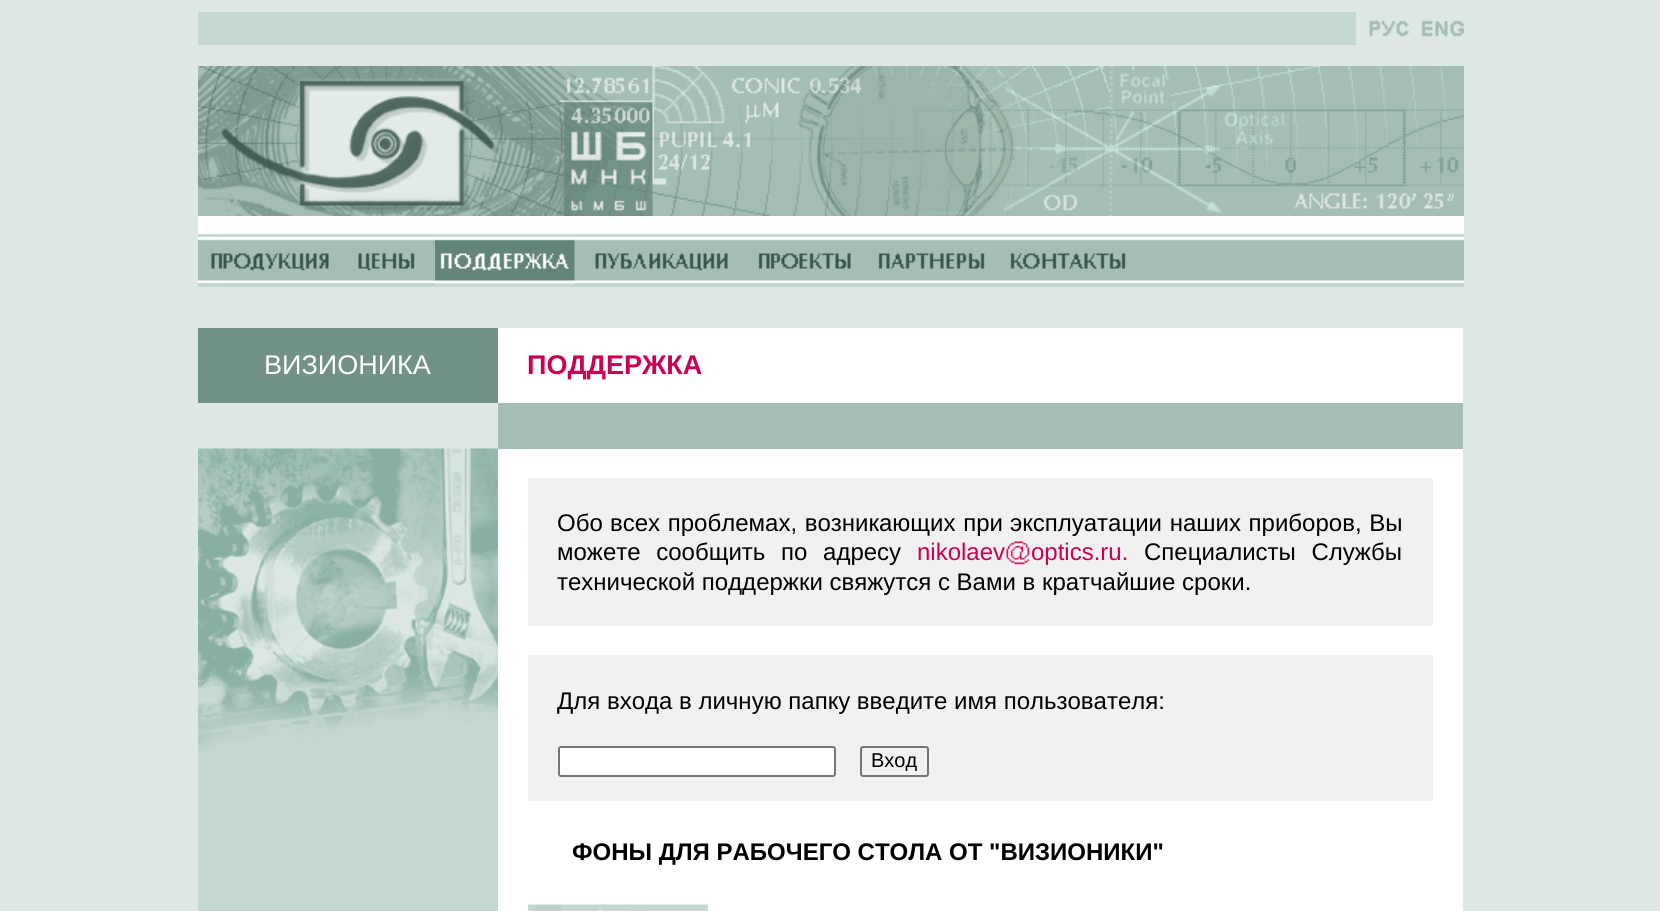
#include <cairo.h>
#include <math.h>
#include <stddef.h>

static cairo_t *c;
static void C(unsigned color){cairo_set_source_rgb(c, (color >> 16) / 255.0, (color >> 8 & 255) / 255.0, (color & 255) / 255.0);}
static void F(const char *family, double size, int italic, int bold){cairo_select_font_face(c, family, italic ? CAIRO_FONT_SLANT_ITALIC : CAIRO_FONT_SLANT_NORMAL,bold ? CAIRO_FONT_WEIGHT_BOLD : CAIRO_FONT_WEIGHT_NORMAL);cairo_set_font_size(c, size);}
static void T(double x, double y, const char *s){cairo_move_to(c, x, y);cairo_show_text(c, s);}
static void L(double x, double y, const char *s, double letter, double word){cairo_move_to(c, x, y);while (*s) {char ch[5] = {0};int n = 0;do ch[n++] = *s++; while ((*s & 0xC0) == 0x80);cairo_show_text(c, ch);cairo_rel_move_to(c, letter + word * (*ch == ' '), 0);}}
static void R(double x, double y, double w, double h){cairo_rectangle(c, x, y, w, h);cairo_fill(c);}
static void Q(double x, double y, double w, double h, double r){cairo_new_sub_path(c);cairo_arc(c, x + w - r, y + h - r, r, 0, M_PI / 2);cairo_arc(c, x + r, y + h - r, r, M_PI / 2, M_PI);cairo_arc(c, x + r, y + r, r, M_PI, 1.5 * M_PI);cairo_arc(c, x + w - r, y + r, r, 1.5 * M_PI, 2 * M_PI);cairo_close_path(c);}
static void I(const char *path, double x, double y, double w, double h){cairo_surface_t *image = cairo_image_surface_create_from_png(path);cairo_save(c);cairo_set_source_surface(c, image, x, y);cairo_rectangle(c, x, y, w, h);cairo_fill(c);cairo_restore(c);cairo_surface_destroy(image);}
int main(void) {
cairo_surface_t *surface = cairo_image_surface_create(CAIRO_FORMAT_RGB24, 1660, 911);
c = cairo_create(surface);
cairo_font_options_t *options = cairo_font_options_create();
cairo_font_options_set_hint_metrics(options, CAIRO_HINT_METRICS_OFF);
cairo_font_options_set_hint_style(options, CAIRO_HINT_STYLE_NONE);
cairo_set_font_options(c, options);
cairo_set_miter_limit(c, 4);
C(0xdde8e4);
cairo_paint(c);
C(0xc4d8d1);
R(198,12,1158,33);
I("1.png",1356,12,54,33);
I("2.png",1410,12,54,33);
I("3.png",198,66,1266,150);
I("4.png",198,216,300,21);
I("5.png",498,216,966,21);
I("6.png",198,237,1266,46);
I("7.png",211,253,118,18);
I("8.png",358,253,57,18);
R(198,283,1266,4);
I("9.png",435,239,140,45);
I("10.png",595,253,133,18);
I("11.png",758,253,93,16);
I("12.png",878,253,107,16);
I("13.png",1010,253,116,16);
R(198,753,300,158);
C(0x729285);
R(198,328,300,75);
F("Liberation Sans",27,0,0);
C(0xffffff);
T(264,374,"ВИЗИОНИКА");
I("14.png",198,448,300,305);
R(498,328,965,583);
F("Liberation Sans",27,0,1);
C(0xca0054);
T(527,374,"ПОДДЕРЖКА");
C(0xa4beb3);
R(498,403,965,46);
C(0xf1f1f1);
R(528,478,905,148);
F("Liberation Sans",24,0,0);
C(0x000000);
T(557,531,"Обо");
L(610,531,"всех проблемах, возникающих при",0,1);
L(1010,531,"эксплуатации наших приборов, Вы",0,1);
L(557,560,"можете сообщить по адресу",0,9);
C(0xca0054);
T(917,560,"nikolaev");
I("15.png",1006,541,24,24);
T(1031,560,"optics.ru.");
C(0x000000);
L(1144,560,"Специалисты Службы",0,9);
T(557,590,"технической поддержки свяжутся с Вами в кратчайшие сроки.");
C(0xf1f1f1);
R(528,655,905,146);
C(0x000000);
T(557,709,"Для входа в личную папку введите имя пользователя:");
C(0xffffff);
Q(559,747,276,29,2);
cairo_fill_preserve(c);
C(0x767676);
cairo_stroke(c);
Q(861,747,67,29,2);
cairo_stroke(c);
F("Liberation Sans",20,0,0);
C(0x000000);
T(871,767,"Вход");
F("Liberation Sans",24,0,1);
T(572,860,"ФОНЫ ДЛЯ РАБОЧЕГО СТОЛА ОТ \"ВИЗИОНИКИ\"");
I("16.png",528,904,180,7);
cairo_surface_write_to_png(surface, "o.png");
cairo_font_options_destroy(options);
cairo_destroy(c);
cairo_surface_destroy(surface);
return 0;
}
